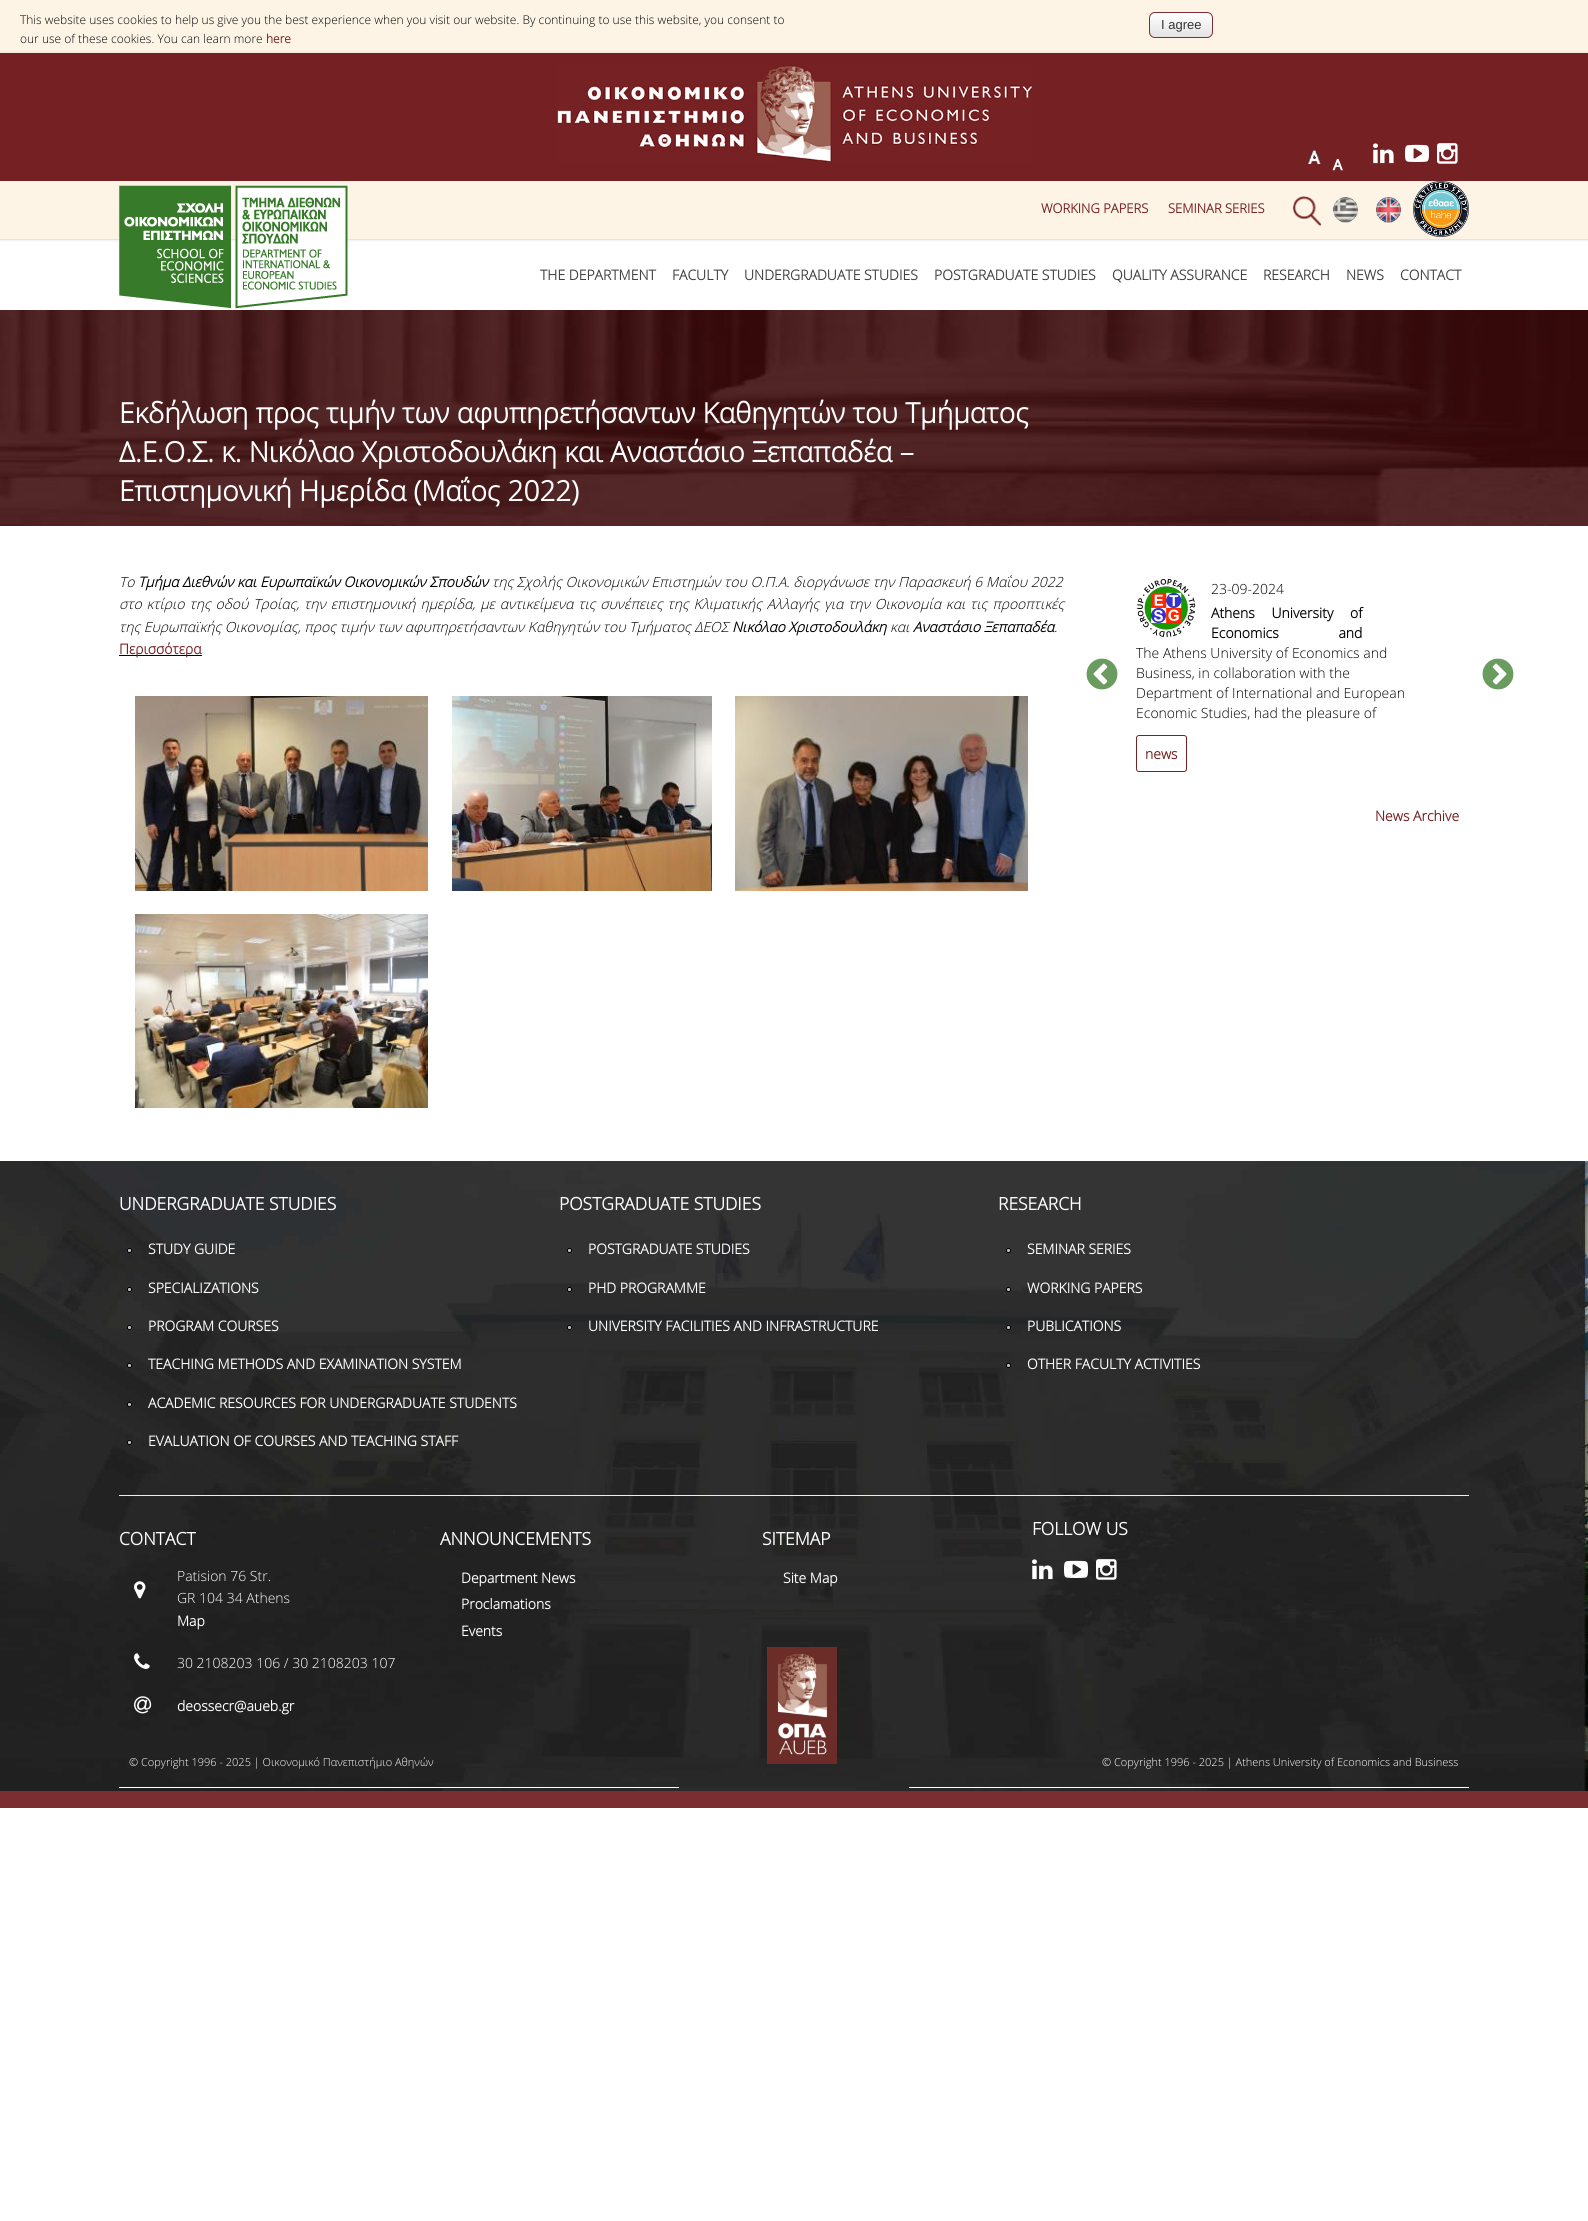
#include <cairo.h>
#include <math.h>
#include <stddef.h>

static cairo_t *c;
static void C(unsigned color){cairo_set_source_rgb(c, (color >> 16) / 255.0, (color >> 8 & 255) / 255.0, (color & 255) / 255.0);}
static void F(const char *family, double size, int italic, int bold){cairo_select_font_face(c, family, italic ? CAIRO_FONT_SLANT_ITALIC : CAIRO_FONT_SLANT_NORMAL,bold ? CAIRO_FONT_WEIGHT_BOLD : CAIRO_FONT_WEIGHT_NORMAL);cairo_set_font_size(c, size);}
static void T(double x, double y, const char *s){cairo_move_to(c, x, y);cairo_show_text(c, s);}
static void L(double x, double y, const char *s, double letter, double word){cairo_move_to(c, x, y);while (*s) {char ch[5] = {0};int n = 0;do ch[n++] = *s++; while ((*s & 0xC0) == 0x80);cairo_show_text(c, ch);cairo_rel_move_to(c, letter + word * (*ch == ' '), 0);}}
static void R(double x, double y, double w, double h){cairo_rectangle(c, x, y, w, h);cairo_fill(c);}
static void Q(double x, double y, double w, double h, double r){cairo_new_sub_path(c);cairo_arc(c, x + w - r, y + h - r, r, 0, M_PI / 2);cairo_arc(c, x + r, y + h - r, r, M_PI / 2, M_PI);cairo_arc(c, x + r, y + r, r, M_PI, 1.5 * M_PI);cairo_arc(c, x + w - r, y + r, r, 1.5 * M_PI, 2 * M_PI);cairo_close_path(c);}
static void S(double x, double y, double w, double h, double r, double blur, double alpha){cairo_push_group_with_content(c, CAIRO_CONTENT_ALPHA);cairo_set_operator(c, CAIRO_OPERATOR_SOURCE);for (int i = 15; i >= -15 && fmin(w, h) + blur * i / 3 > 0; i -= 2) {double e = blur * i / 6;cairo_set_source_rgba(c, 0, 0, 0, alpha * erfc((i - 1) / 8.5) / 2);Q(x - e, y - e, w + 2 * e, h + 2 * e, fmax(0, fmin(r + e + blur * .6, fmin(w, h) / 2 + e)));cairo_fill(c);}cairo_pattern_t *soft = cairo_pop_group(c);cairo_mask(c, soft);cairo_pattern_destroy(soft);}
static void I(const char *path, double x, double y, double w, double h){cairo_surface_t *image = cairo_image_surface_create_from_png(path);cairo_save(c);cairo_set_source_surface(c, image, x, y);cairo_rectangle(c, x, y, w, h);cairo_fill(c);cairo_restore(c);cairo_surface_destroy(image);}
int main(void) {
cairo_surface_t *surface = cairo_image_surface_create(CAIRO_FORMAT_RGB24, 1588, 2221);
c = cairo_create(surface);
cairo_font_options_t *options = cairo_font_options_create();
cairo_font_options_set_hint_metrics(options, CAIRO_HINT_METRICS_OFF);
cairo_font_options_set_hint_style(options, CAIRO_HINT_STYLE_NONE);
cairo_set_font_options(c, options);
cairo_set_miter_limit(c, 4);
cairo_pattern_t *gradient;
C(0xffffff);
cairo_paint(c);
C(0xfdf4e6);
R(0,0,1588,53);
F("Open Sans Light",12,0,0);
C(0x000000);
T(20,24,"This website uses cookies to help us give you the best experience when you visit our website. By continuing to use this website, you consent to");
T(20,43,"our use of these cookies. You can learn more");
F("Open Sans",12,0,1);
C(0x752123);
T(266,43,"here");
cairo_save(c);
Q(1149,12,64,26,6);
cairo_clip(c);
gradient = cairo_pattern_create_linear(1181,13,1181,37);
cairo_pattern_add_color_stop_rgba(gradient,0,1,1,1,1);
cairo_pattern_add_color_stop_rgba(gradient,1,0.89,0.89,0.89,1);
cairo_set_source(c,gradient);
cairo_pattern_destroy(gradient);
R(1149,13,64,24);
cairo_restore(c);
Q(1149.5,12.5,63,25,5.5);
C(0x812d31);
cairo_set_line_width(c,1);
cairo_stroke(c);
F("Liberation Sans",13,0,0);
C(0x333333);
T(1161,29,"I agree");
C(0x000000);
S(0,53,1588,187,0,1.5,.1);
C(0xfdf4e6);
R(0,181,1588,58);
C(0xe4e4e4);
R(0,239,1588,1);
C(0x752123);
R(0,53,1588,128);
I("1.png",556,65,477,97);
I("2.png",1308,150,13,14);
I("3.png",1332,159,11,12);
I("4.png",1373,143,21,21);
I("5.png",1405,144,24,18);
I("6.png",1437,143,21,21);
F("Open Sans",13,0,1);
T(1041,213,"WORKING PAPERS");
T(1168,213,"SEMINAR SERIES");
I("7.png",1293,196,29,30);
I("8.png",1333,197,25,26);
I("9.png",1376,197,25,26);
I("10.png",1413,181,56,56);
I("11.png",119,185,229,124);
F("Open Sans",14,0,1);
C(0x424343);
T(540,280,"THE DEPARTMENT");
T(672,280,"FACULTY");
T(744,280,"UNDERGRADUATE STUDIES");
T(934,280,"POSTGRADUATE STUDIES");
T(1112,280,"QUALITY ASSURANCE");
T(1263,280,"RESEARCH");
T(1346,280,"NEWS");
T(1400,280,"CONTACT");
I("12.png",0,310,1588,216);
F("Open Sans",28,0,1);
C(0xffffff);
T(119,423,"Εκδήλωση προς τιμήν των αφυπηρετήσαντων Καθηγητών του Τμήματος");
T(119,462,"Δ.Ε.Ο.Σ. κ. Νικόλαο Χριστοδουλάκη και Αναστάσιο Ξεπαπαδέα –");
T(119,501,"Επιστημονική Ημερίδα (Μαΐος 2022)");
F("Open Sans Light",14,1,0);
C(0x000000);
T(119,587,"Το");
F("Open Sans",14,1,1);
T(138,587,"Τμήμα Διεθνών και Ευρωπαϊκών Οικονομικών Σπουδών");
F("Open Sans Light",14,1,0);
T(492,587,"της Σχολής Οικονομικών Επιστημών του Ο.Π.Α. διοργάνωσε την Παρασκευή 6 Μαΐου 2022");
L(119,609,"στο κτίριο της οδού Τροίας, την επιστημονική ημερίδα, με αντικείμενα τις συνέπειες της Κλιματικής Αλλαγής για την Οικονομία και τις προοπτικές",0,1.25);
T(119,632,"της Ευρωπαϊκής Οικονομίας, προς τιμήν των αφυπηρετήσαντων Καθηγητών του Τμήματος ΔΕΟΣ");
F("Open Sans",14,1,1);
T(732,632,"Νικόλαο Χριστοδουλάκη");
F("Open Sans Light",14,1,0);
T(890,632,"και");
F("Open Sans",14,1,1);
T(913,632,"Αναστάσιο Ξεπαπαδέα");
F("Open Sans Light",14,1,0);
T(1054,632,".");
R(119,655,83,1);
F("Open Sans",14,0,1);
C(0x752123);
T(119,654,"Περισσότερα");
I("13.png",135,696,293,195);
I("14.png",452,696,260,195);
I("15.png",735,696,293,195);
I("16.png",135,914,293,194);
I("17.png",1137,578,59,59);
F("Open Sans Light",14,0,0);
C(0x000000);
T(1211,594,"23-09-2024");
F("Open Sans",14,0,1);
L(1211,618,"Athens University of",0,13);
L(1211,638,"Economics and",0,56);
F("Open Sans Light",14,0,0);
T(1136,658,"The Athens University of Economics and");
T(1136,678,"Business, in collaboration with the");
T(1136,698,"Department of International and European");
T(1136,718,"Economic Studies, had the pleasure of");
Q(1136.5,735.5,50,36,2.5);
C(0x752123);
cairo_stroke(c);
F("Open Sans",14,0,1);
T(1145,759,"news");
I("18.png",1086,658,32,32);
I("19.png",1482,658,32,32);
T(1375,821,"News Archive");
I("20.png",0,1161,1588,630);
F("Open Sans",17.5,0,1);
C(0xffffff);
T(119,1210,"UNDERGRADUATE STUDIES");
I("21.png",127,1248,5,5);
F("Open Sans",14,0,1);
T(148,1254,"STUDY GUIDE");
I("22.png",127,1287,5,5);
T(148,1293,"SPECIALIZATIONS");
I("23.png",127,1325,5,5);
T(148,1331,"PROGRAM COURSES");
I("24.png",127,1363,5,5);
T(148,1369,"TEACHING METHODS AND EXAMINATION SYSTEM");
I("25.png",127,1402,5,5);
T(148,1408,"ACADEMIC RESOURCES FOR UNDERGRADUATE STUDENTS");
I("26.png",127,1440,5,5);
T(148,1446,"EVALUATION OF COURSES AND TEACHING STAFF");
F("Open Sans",17.5,0,1);
T(559,1210,"POSTGRADUATE STUDIES");
I("27.png",567,1248,5,5);
F("Open Sans",14,0,1);
T(588,1254,"POSTGRADUATE STUDIES");
I("22.png",567,1287,5,5);
T(588,1293,"PHD PROGRAMME");
I("28.png",567,1325,5,5);
T(588,1331,"UNIVERSITY FACILITIES AND INFRASTRUCTURE");
F("Open Sans",17.5,0,1);
T(998,1210,"RESEARCH");
I("29.png",1006,1248,5,5);
F("Open Sans",14,0,1);
T(1027,1254,"SEMINAR SERIES");
I("30.png",1006,1287,5,5);
T(1027,1293,"WORKING PAPERS");
I("21.png",1006,1325,5,5);
T(1027,1331,"PUBLICATIONS");
I("22.png",1006,1363,5,5);
T(1027,1369,"OTHER FACULTY ACTIVITIES");
C(0xeeeeee);
R(119,1495,1350,1);
F("Open Sans",17.5,0,1);
C(0xffffff);
T(1032,1535,"FOLLOW US");
I("31.png",1032,1559,21,21);
I("32.png",1064,1560,24,18);
I("33.png",1096,1559,21,21);
T(119,1545,"CONTACT");
F("Open Sans Light",14,0,0);
T(177,1581,"Patision 76 Str.");
I("34.png",134,1581,12,18);
T(177,1603,"GR 104 34 Athens");
F("Open Sans",14,0,1);
T(177,1626,"Map");
I("35.png",134,1653,16,16);
F("Open Sans Light",14,0,0);
T(177,1668,"30 2108203 106 / 30 2108203 107");
I("36.png",134,1696,18,18);
F("Open Sans",14,0,1);
T(177,1711,"deossecr@aueb.gr");
F("Open Sans",17.5,0,1);
T(440,1545,"ANNOUNCEMENTS");
F("Open Sans",14,0,1);
T(461,1583,"Department News");
T(461,1609,"Proclamations");
T(461,1636,"Events");
F("Open Sans",17.5,0,1);
T(762,1545,"SITEMAP");
F("Open Sans",14,0,1);
T(783,1583,"Site Map");
R(119,1787,560,1);
F("Open Sans Light",11,0,0);
T(129,1766,"© Copyright 1996 - 2025 | Οικονομικό Πανεπιστήμιο Αθηνών");
I("37.png",767,1647,70,117);
R(909,1787,560,1);
T(1102,1766,"© Copyright 1996 - 2025 | Athens University of Economics and Business");
C(0x7b2e32);
R(0,1791,1588,17);
cairo_surface_write_to_png(surface, "o.png");
cairo_font_options_destroy(options);
cairo_destroy(c);
cairo_surface_destroy(surface);
return 0;
}
